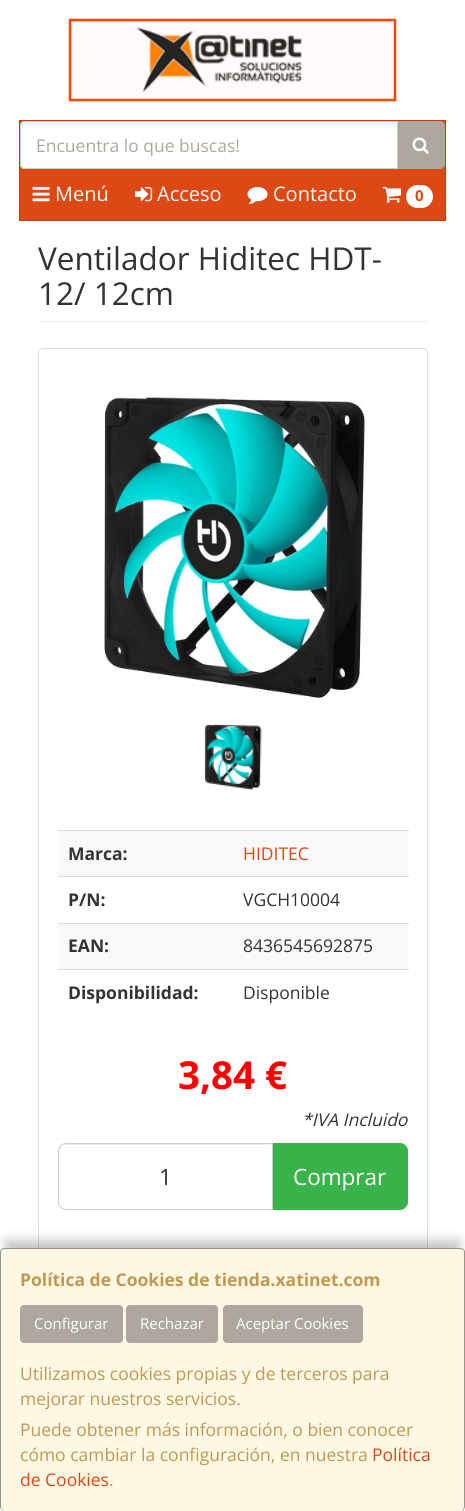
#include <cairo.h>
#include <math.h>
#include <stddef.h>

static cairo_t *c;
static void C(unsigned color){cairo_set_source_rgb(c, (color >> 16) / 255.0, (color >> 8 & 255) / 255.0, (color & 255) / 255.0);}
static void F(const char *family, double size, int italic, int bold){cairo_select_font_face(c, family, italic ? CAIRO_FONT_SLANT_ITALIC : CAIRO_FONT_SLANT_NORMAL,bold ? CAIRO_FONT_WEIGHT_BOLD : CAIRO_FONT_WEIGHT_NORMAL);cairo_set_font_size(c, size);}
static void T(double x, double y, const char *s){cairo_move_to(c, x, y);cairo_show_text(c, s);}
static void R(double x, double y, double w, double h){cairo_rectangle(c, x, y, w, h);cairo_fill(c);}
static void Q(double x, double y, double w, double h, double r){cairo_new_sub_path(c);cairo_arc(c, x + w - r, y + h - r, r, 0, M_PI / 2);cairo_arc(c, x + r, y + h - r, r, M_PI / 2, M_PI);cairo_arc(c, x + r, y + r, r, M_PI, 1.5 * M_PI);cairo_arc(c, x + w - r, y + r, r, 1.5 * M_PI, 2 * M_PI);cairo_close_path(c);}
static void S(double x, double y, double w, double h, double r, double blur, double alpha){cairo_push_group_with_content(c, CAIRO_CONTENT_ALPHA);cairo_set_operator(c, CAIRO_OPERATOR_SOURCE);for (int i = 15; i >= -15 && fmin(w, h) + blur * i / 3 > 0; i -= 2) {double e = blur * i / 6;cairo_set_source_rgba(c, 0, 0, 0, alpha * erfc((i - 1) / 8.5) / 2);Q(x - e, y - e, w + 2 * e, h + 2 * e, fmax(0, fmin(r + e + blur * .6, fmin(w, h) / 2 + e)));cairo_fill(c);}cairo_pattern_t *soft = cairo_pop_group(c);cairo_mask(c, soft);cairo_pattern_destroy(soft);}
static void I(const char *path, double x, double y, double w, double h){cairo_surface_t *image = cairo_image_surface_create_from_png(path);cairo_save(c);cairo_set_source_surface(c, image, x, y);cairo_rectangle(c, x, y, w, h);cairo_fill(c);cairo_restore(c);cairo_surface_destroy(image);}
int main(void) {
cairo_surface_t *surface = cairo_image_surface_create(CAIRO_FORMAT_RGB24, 465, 1511);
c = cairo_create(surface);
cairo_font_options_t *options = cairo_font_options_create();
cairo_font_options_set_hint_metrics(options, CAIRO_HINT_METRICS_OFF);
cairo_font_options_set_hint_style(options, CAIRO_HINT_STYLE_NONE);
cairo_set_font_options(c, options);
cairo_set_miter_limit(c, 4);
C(0xffffff);
cairo_paint(c);
I("1.png",68,18,329,84);
C(0xdd4814);
cairo_rectangle(c,19.5,120.5,426,100);
cairo_fill_preserve(c);
C(0xbf3e11);
cairo_set_line_width(c,1);
cairo_stroke(c);
C(0xaea79f);
cairo_new_path(c);
cairo_move_to(c,396.5,121.5);
cairo_line_to(c,440,121.5);
cairo_curve_to(c,442.5,121.5,444.5,123.5,444.5,126);
cairo_line_to(c,444.5,164);
cairo_curve_to(c,444.5,166.5,442.5,168.5,440,168.5);
cairo_line_to(c,396.5,168.5);
cairo_close_path(c);
cairo_fill_preserve(c);
cairo_stroke(c);
C(0xffffff);
cairo_new_path(c);
cairo_move_to(c,25,121);
cairo_line_to(c,398,121);
cairo_line_to(c,398,169);
cairo_line_to(c,25,169);
cairo_curve_to(c,22,169,20,167,20,164);
cairo_line_to(c,20,126);
cairo_curve_to(c,20,123,22,121,25,121);
cairo_close_path(c);
cairo_fill(c);
C(0xececec);
cairo_new_path(c);
cairo_move_to(c,25,124);
cairo_line_to(c,396,124);
cairo_line_to(c,396,123);
cairo_line_to(c,25,123);
cairo_curve_to(c,22,123,21,125,21,128);
cairo_curve_to(c,21,125,23,124,25,124);
cairo_close_path(c);
cairo_fill(c);
cairo_new_path(c);
cairo_move_to(c,25,121.5);
cairo_line_to(c,397.5,121.5);
cairo_line_to(c,397.5,168.5);
cairo_line_to(c,25,168.5);
cairo_curve_to(c,22.5,168.5,20.5,166.5,20.5,164);
cairo_line_to(c,20.5,126);
cairo_curve_to(c,20.5,123.5,22.5,121.5,25,121.5);
cairo_close_path(c);
C(0xcccccc);
cairo_stroke(c);
F("Open Sans",17.5,0,0);
C(0xaea79f);
T(36,152,"Encuentra lo que buscas!");
I("2.png",412,137,17,17);
I("3.png",32,186,18,16);
F("Open Sans",20,0,0);
C(0xffffff);
T(55,201,"Menú");
I("4.png",135,186,18,16);
T(157,201,"Acceso");
I("5.png",247,187,21,18);
T(273,201,"Contacto");
I("6.png",382,186,20,17);
Q(406,185,27,23,11.5);
cairo_fill(c);
F("Open Sans",15,0,1);
C(0xdd4814);
T(415,201,"0");
C(0xeeeeee);
R(38,321,390,1);
F("Open Sans",31.5,0,0);
C(0x333333);
T(38,270,"Ventilador Hiditec HDT-");
T(38,305,"12/ 12cm");
Q(38.5,348.5,389,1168,4.5);
C(0xdddddd);
cairo_stroke(c);
I("7.png",104,397,261,302);
I("8.png",204,724,58,67);
C(0xf9f9f9);
R(58,831,350,45);
F("Open Sans",17.5,0,1);
C(0x333333);
T(68,860,"Marca:");
C(0xdddddd);
R(58,830,351,1);
F("Open Sans",17.5,0,0);
C(0xdd4814);
T(243,860,"HIDITEC");
F("Open Sans",17.5,0,1);
C(0x333333);
T(68,906,"P/N:");
C(0xdddddd);
R(58,876,351,1);
F("Open Sans",17.5,0,0);
C(0x333333);
T(243,906,"VGCH10004");
C(0xf9f9f9);
R(58,924,350,45);
F("Open Sans",17.5,0,1);
C(0x333333);
T(68,952,"EAN:");
C(0xdddddd);
R(58,923,351,1);
F("Open Sans",17.5,0,0);
C(0x333333);
T(243,952,"8436545692875");
F("Open Sans",17.5,0,1);
T(68,999,"Disponibilidad:");
C(0xdddddd);
R(58,969,351,1);
F("Open Sans",17.5,0,0);
C(0x333333);
T(243,999,"Disponible");
F("Open Sans",38.5,0,1);
C(0xff0000);
T(178,1089,"3,84 €");
F("Open Sans",17.5,1,0);
C(0x333333);
T(302,1126,"*IVA Incluido");
C(0x38b44a);
cairo_new_path(c);
cairo_move_to(c,271.5,1143.5);
cairo_line_to(c,400,1143.5);
cairo_curve_to(c,404,1143.5,407.5,1147,407.5,1151);
cairo_line_to(c,407.5,1202);
cairo_curve_to(c,407.5,1206,404,1209.5,400,1209.5);
cairo_line_to(c,271.5,1209.5);
cairo_close_path(c);
cairo_fill_preserve(c);
cairo_stroke(c);
C(0xffffff);
cairo_new_path(c);
cairo_move_to(c,66,1143);
cairo_line_to(c,273,1143);
cairo_line_to(c,273,1210);
cairo_line_to(c,66,1210);
cairo_curve_to(c,61.5,1210,58,1206.5,58,1202);
cairo_line_to(c,58,1151);
cairo_curve_to(c,58,1146.5,61.5,1143,66,1143);
cairo_close_path(c);
cairo_fill(c);
C(0xececec);
cairo_new_path(c);
cairo_move_to(c,65,1145);
cairo_line_to(c,271,1145);
cairo_line_to(c,271,1144);
cairo_line_to(c,65,1144);
cairo_curve_to(c,61,1144,59,1147,59,1151);
cairo_curve_to(c,59,1148,62,1145,65,1145);
cairo_close_path(c);
cairo_fill(c);
cairo_new_path(c);
cairo_move_to(c,66,1143.5);
cairo_line_to(c,272.5,1143.5);
cairo_line_to(c,272.5,1209.5);
cairo_line_to(c,66,1209.5);
cairo_curve_to(c,62,1209.5,58.5,1206,58.5,1202);
cairo_line_to(c,58.5,1151);
cairo_curve_to(c,58.5,1147,62,1143.5,66,1143.5);
cairo_close_path(c);
C(0xcccccc);
cairo_stroke(c);
F("Open Sans",22.5,0,0);
C(0x333333);
T(159,1185,"1");
C(0xffffff);
T(293,1185,"Comprar");
C(0x000000);
S(6,1241,453,252,0,6,.25);
C(0xfcf8e3);
Q(0,1248,465,263,5);
cairo_fill(c);
cairo_set_source_rgba(c,0,0,0,0.4);
cairo_set_fill_rule(c,CAIRO_FILL_RULE_EVEN_ODD);
cairo_new_path(c);
cairo_move_to(c,5,1248);
cairo_line_to(c,460,1248);
cairo_curve_to(c,463,1248,465,1250,465,1252);
cairo_line_to(c,465,1506);
cairo_curve_to(c,465,1509,463,1511,460,1511);
cairo_line_to(c,5,1511);
cairo_curve_to(c,2,1511,0,1509,0,1506);
cairo_line_to(c,0,1252);
cairo_curve_to(c,0,1250,2,1248,5,1248);
cairo_close_path(c);
cairo_move_to(c,5,1249);
cairo_line_to(c,460,1249);
cairo_curve_to(c,462,1249,464,1250,464,1252);
cairo_line_to(c,464,1506);
cairo_curve_to(c,464,1509,462,1511,460,1511);
cairo_line_to(c,5,1511);
cairo_curve_to(c,3,1511,1,1509,1,1506);
cairo_line_to(c,1,1252);
cairo_curve_to(c,1,1250,3,1249,5,1249);
cairo_close_path(c);
cairo_fill(c);
F("Open Sans",17.5,0,1);
C(0xc09853);
T(20,1286,"Política de Cookies de tienda.xatinet.com");
C(0xaea79f);
Q(20.5,1305.5,102,37,3.5);
cairo_fill_preserve(c);
cairo_stroke(c);
F("Open Sans",15,0,0);
C(0xffffff);
T(34,1329,"Configurar");
C(0xaea79f);
Q(126.5,1305.5,91,37,3.5);
cairo_fill_preserve(c);
cairo_stroke(c);
C(0xffffff);
T(140,1329,"Rechazar");
C(0xaea79f);
Q(223.5,1305.5,139,37,3.5);
cairo_fill_preserve(c);
cairo_stroke(c);
C(0xffffff);
T(236,1329,"Aceptar Cookies");
F("Open Sans",17.5,0,0);
C(0xc09853);
T(20,1380,"Utilizamos cookies propias y de terceros para");
T(20,1405,"mejorar nuestros servicios.");
T(20,1436,"Puede obtener más información, o bien conocer");
T(20,1461,"cómo cambiar la configuración, en nuestra");
C(0xdd4814);
T(372,1461,"Política");
T(20,1486,"de Cookies");
C(0xc09853);
T(109,1486,".");
cairo_surface_write_to_png(surface, "o.png");
cairo_font_options_destroy(options);
cairo_destroy(c);
cairo_surface_destroy(surface);
return 0;
}
